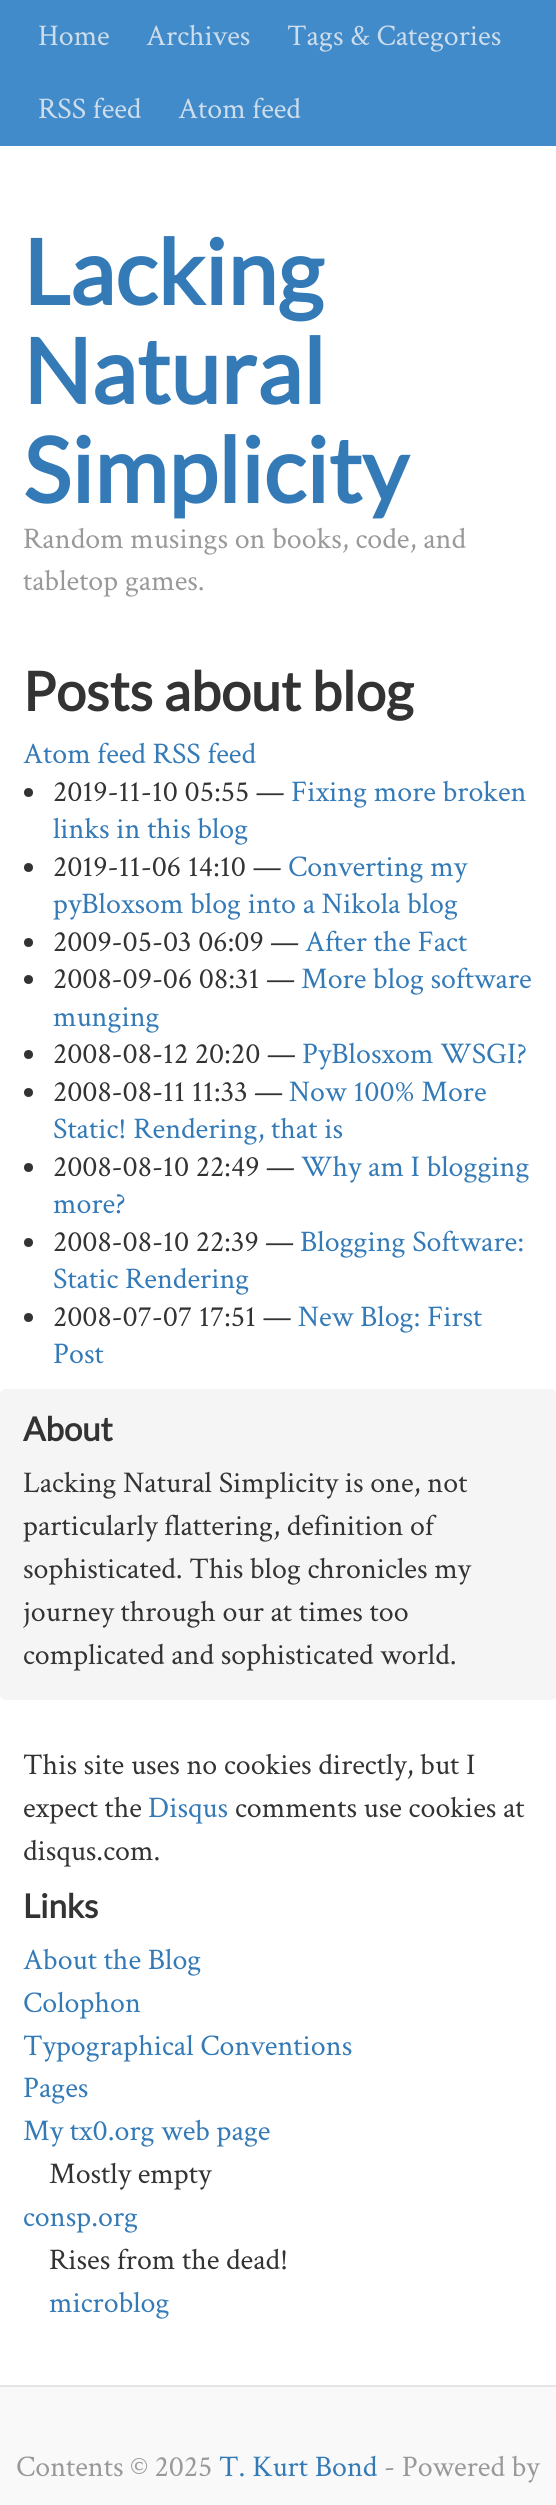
#include <cairo.h>
#include <math.h>
#include <stddef.h>

static cairo_t *c;
static void C(unsigned color){cairo_set_source_rgb(c, (color >> 16) / 255.0, (color >> 8 & 255) / 255.0, (color & 255) / 255.0);}
static void F(const char *family, double size, int italic, int bold){cairo_select_font_face(c, family, italic ? CAIRO_FONT_SLANT_ITALIC : CAIRO_FONT_SLANT_NORMAL,bold ? CAIRO_FONT_WEIGHT_BOLD : CAIRO_FONT_WEIGHT_NORMAL);cairo_set_font_size(c, size);}
static void T(double x, double y, const char *s){cairo_move_to(c, x, y);cairo_show_text(c, s);}
static void R(double x, double y, double w, double h){cairo_rectangle(c, x, y, w, h);cairo_fill(c);}
static void Q(double x, double y, double w, double h, double r){cairo_new_sub_path(c);cairo_arc(c, x + w - r, y + h - r, r, 0, M_PI / 2);cairo_arc(c, x + r, y + h - r, r, M_PI / 2, M_PI);cairo_arc(c, x + r, y + r, r, M_PI, 1.5 * M_PI);cairo_arc(c, x + w - r, y + r, r, 1.5 * M_PI, 2 * M_PI);cairo_close_path(c);}
int main(void) {
cairo_surface_t *surface = cairo_image_surface_create(CAIRO_FORMAT_RGB24, 556, 2505);
c = cairo_create(surface);
cairo_font_options_t *options = cairo_font_options_create();
cairo_font_options_set_hint_metrics(options, CAIRO_HINT_METRICS_OFF);
cairo_font_options_set_hint_style(options, CAIRO_HINT_STYLE_NONE);
cairo_set_font_options(c, options);
cairo_set_miter_limit(c, 4);
C(0xffffff);
cairo_paint(c);
C(0x428bca);
R(0,0,556,146);
F("Crimson Text",30,0,0);
C(0xcdddeb);
T(38,45,"Home");
T(146,45,"Archives");
T(287,45,"Tags & Categories");
T(38,118,"RSS feed");
T(178,118,"Atom feed");
F("Lato",90,0,1);
C(0x337ab7);
T(23,305,"Lacking");
T(23,404,"Natural");
T(23,503,"Simplicity");
F("Crimson Text",30,0,0);
C(0x999999);
T(23,548,"Random musings on books, code, and");
T(23,590,"tabletop games.");
F("Lato",54,0,1);
C(0x333333);
T(23,711,"Posts about blog");
F("Crimson Text",30,0,0);
C(0x337ab7);
T(23,763,"Atom feed RSS feed");
C(0x333333);
cairo_new_path(c);
cairo_arc(c,28.5,792.5,4.5,0,2 * M_PI);
cairo_fill(c);
T(53,801,"2019-11-10 05:55 —");
C(0x337ab7);
T(291,801,"Fixing more broken");
T(53,838,"links in this blog");
C(0x333333);
cairo_new_path(c);
cairo_arc(c,28.5,867.5,4.5,0,2 * M_PI);
cairo_fill(c);
T(53,876,"2019-11-06 14:10 —");
C(0x337ab7);
T(288,876,"Converting my");
T(53,913,"pyBloxsom blog into a Nikola blog");
C(0x333333);
cairo_new_path(c);
cairo_arc(c,28.5,942.5,4.5,0,2 * M_PI);
cairo_fill(c);
T(53,951,"2009-05-03 06:09 —");
C(0x337ab7);
T(305,951,"After the Fact");
C(0x333333);
cairo_new_path(c);
cairo_arc(c,28.5,979.5,4.5,0,2 * M_PI);
cairo_fill(c);
T(53,988,"2008-09-06 08:31 —");
C(0x337ab7);
T(301,988,"More blog software");
T(53,1026,"munging");
C(0x333333);
cairo_new_path(c);
cairo_arc(c,28.5,1054.5,4.5,0,2 * M_PI);
cairo_fill(c);
T(53,1063,"2008-08-12 20:20 —");
C(0x337ab7);
T(302,1063,"PyBlosxom WSGI?");
C(0x333333);
cairo_new_path(c);
cairo_arc(c,28.5,1092.5,4.5,0,2 * M_PI);
cairo_fill(c);
T(53,1101,"2008-08-11 11:33 —");
C(0x337ab7);
T(289,1101,"Now 100% More");
T(53,1138,"Static! Rendering, that is");
C(0x333333);
cairo_new_path(c);
cairo_arc(c,28.5,1167.5,4.5,0,2 * M_PI);
cairo_fill(c);
T(53,1176,"2008-08-10 22:49 —");
C(0x337ab7);
T(301,1176,"Why am I blogging");
T(53,1213,"more?");
C(0x333333);
cairo_new_path(c);
cairo_arc(c,28.5,1242.5,4.5,0,2 * M_PI);
cairo_fill(c);
T(53,1251,"2008-08-10 22:39 —");
C(0x337ab7);
T(300,1251,"Blogging Software:");
T(53,1288,"Static Rendering");
C(0x333333);
cairo_new_path(c);
cairo_arc(c,28.5,1317.5,4.5,0,2 * M_PI);
cairo_fill(c);
T(53,1326,"2008-07-07 17:51 —");
C(0x337ab7);
T(298,1326,"New Blog: First");
T(53,1363,"Post");
C(0xf5f5f5);
Q(0,1389,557,311,6);
cairo_fill(c);
F("Lato",33,0,1);
C(0x333333);
T(23,1441,"About");
F("Crimson Text",30,0,0);
T(23,1492,"Lacking Natural Simplicity is one, not");
T(23,1535,"particularly flattering, definition of");
T(23,1578,"sophisticated. This blog chronicles my");
T(23,1621,"journey through our at times too");
T(23,1664,"complicated and sophisticated world.");
T(23,1774,"This site uses no cookies directly, but I");
T(23,1817,"expect the");
C(0x337ab7);
T(148,1817,"Disqus");
C(0x333333);
T(235,1817,"comments use cookies at");
T(23,1860,"disqus.com.");
F("Lato",33,0,1);
T(23,1918,"Links");
F("Crimson Text",30,0,0);
C(0x337ab7);
T(23,1969,"About the Blog");
T(23,2012,"Colophon");
T(23,2055,"Typographical Conventions");
T(23,2097,"Pages");
T(23,2140,"My tx0.org web page");
C(0x333333);
T(49,2183,"Mostly empty");
C(0x337ab7);
T(23,2226,"consp.org");
C(0x333333);
T(49,2269,"Rises from the dead!");
C(0x337ab7);
T(49,2312,"microblog");
C(0xf9f9f9);
R(0,2387,556,118);
C(0xe5e5e5);
R(0,2385,556,2);
C(0x999999);
T(16,2476,"Contents © 2025");
C(0x337ab7);
T(219,2476,"T. Kurt Bond");
C(0x999999);
T(384,2476,"- Powered by");
cairo_surface_write_to_png(surface, "o.png");
cairo_font_options_destroy(options);
cairo_destroy(c);
cairo_surface_destroy(surface);
return 0;
}
